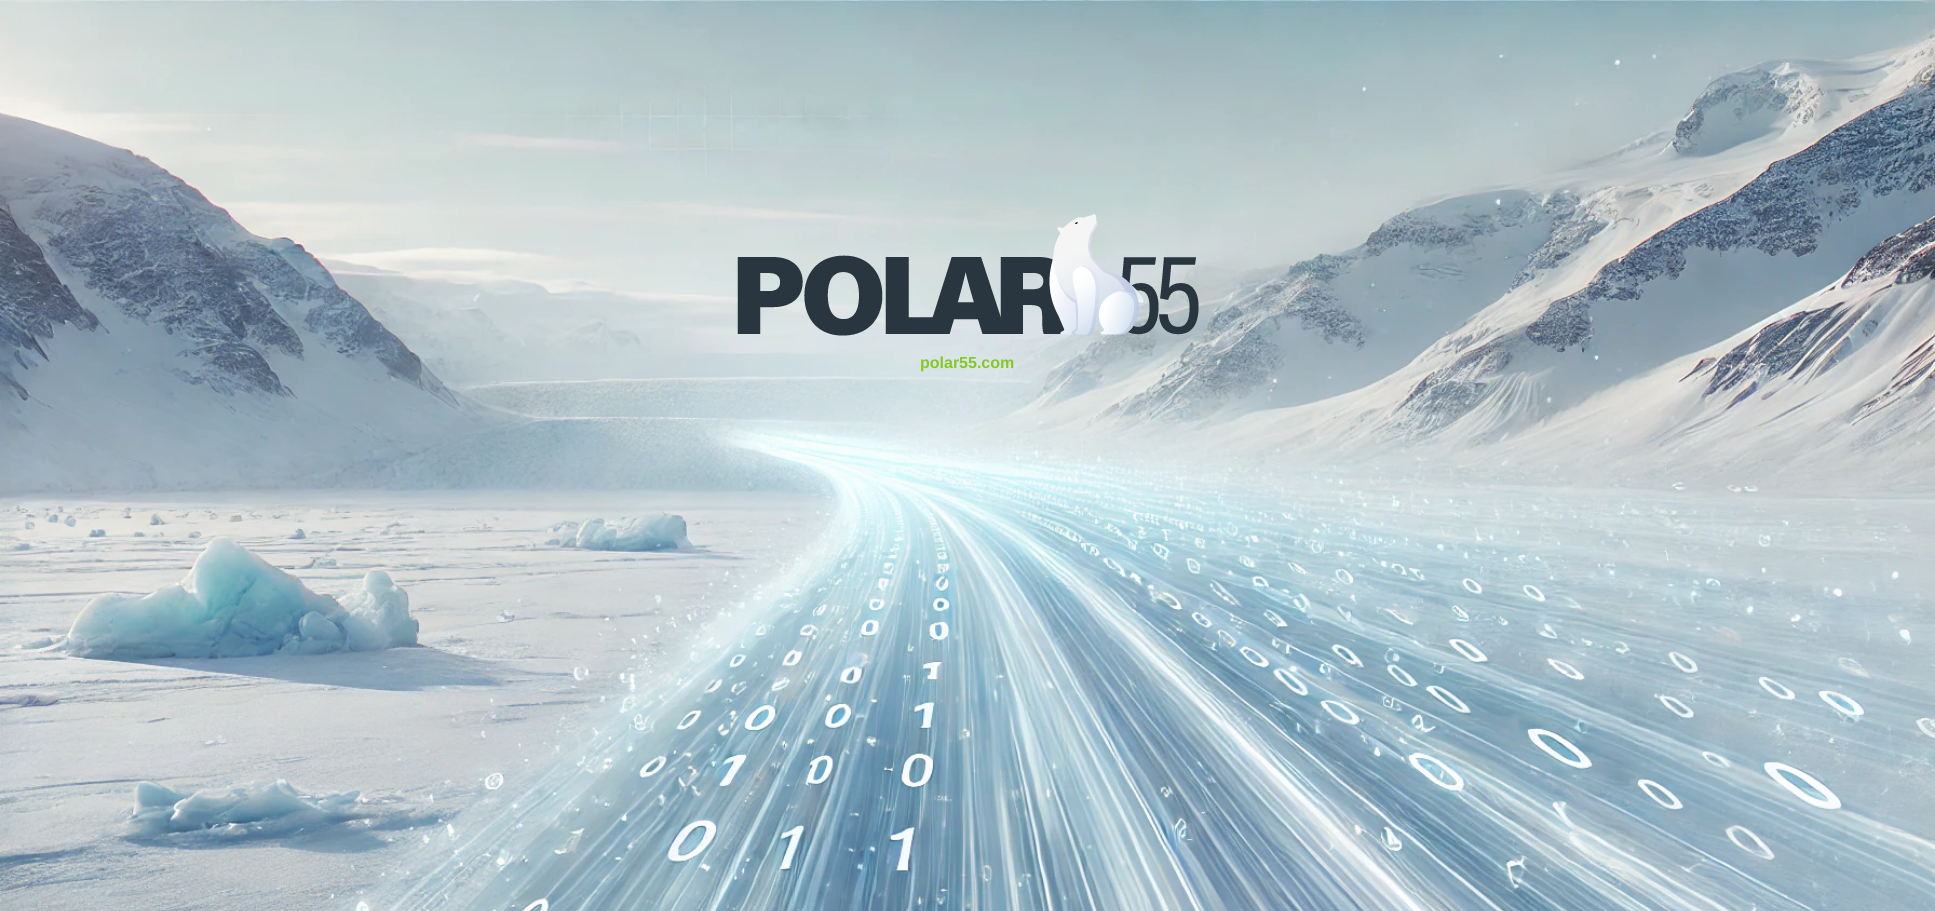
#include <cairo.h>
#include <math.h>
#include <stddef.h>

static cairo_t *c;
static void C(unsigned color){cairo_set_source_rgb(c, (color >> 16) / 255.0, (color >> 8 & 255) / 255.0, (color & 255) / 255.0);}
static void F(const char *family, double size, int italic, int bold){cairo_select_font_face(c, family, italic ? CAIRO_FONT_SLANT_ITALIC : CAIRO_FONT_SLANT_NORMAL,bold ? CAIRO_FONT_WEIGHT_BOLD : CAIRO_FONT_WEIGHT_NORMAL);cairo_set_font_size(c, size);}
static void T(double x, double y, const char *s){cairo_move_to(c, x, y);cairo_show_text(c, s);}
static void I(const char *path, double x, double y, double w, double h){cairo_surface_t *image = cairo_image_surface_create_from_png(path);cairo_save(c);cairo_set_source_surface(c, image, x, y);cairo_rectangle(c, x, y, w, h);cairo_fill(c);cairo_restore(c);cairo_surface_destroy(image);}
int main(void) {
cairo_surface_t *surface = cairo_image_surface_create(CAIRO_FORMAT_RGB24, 1935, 911);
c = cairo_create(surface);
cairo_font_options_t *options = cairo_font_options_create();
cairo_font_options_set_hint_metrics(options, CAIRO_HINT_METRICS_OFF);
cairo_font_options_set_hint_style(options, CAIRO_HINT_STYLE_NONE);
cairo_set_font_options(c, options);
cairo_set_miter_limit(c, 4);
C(0xffffff);
cairo_paint(c);
I("1.png",0,0,1935,911);
I("2.png",737,214,462,122);
F("Liberation Sans",16,0,1);
C(0x86c724);
T(920,368,"polar55.com");
cairo_surface_write_to_png(surface, "o.png");
cairo_font_options_destroy(options);
cairo_destroy(c);
cairo_surface_destroy(surface);
return 0;
}
